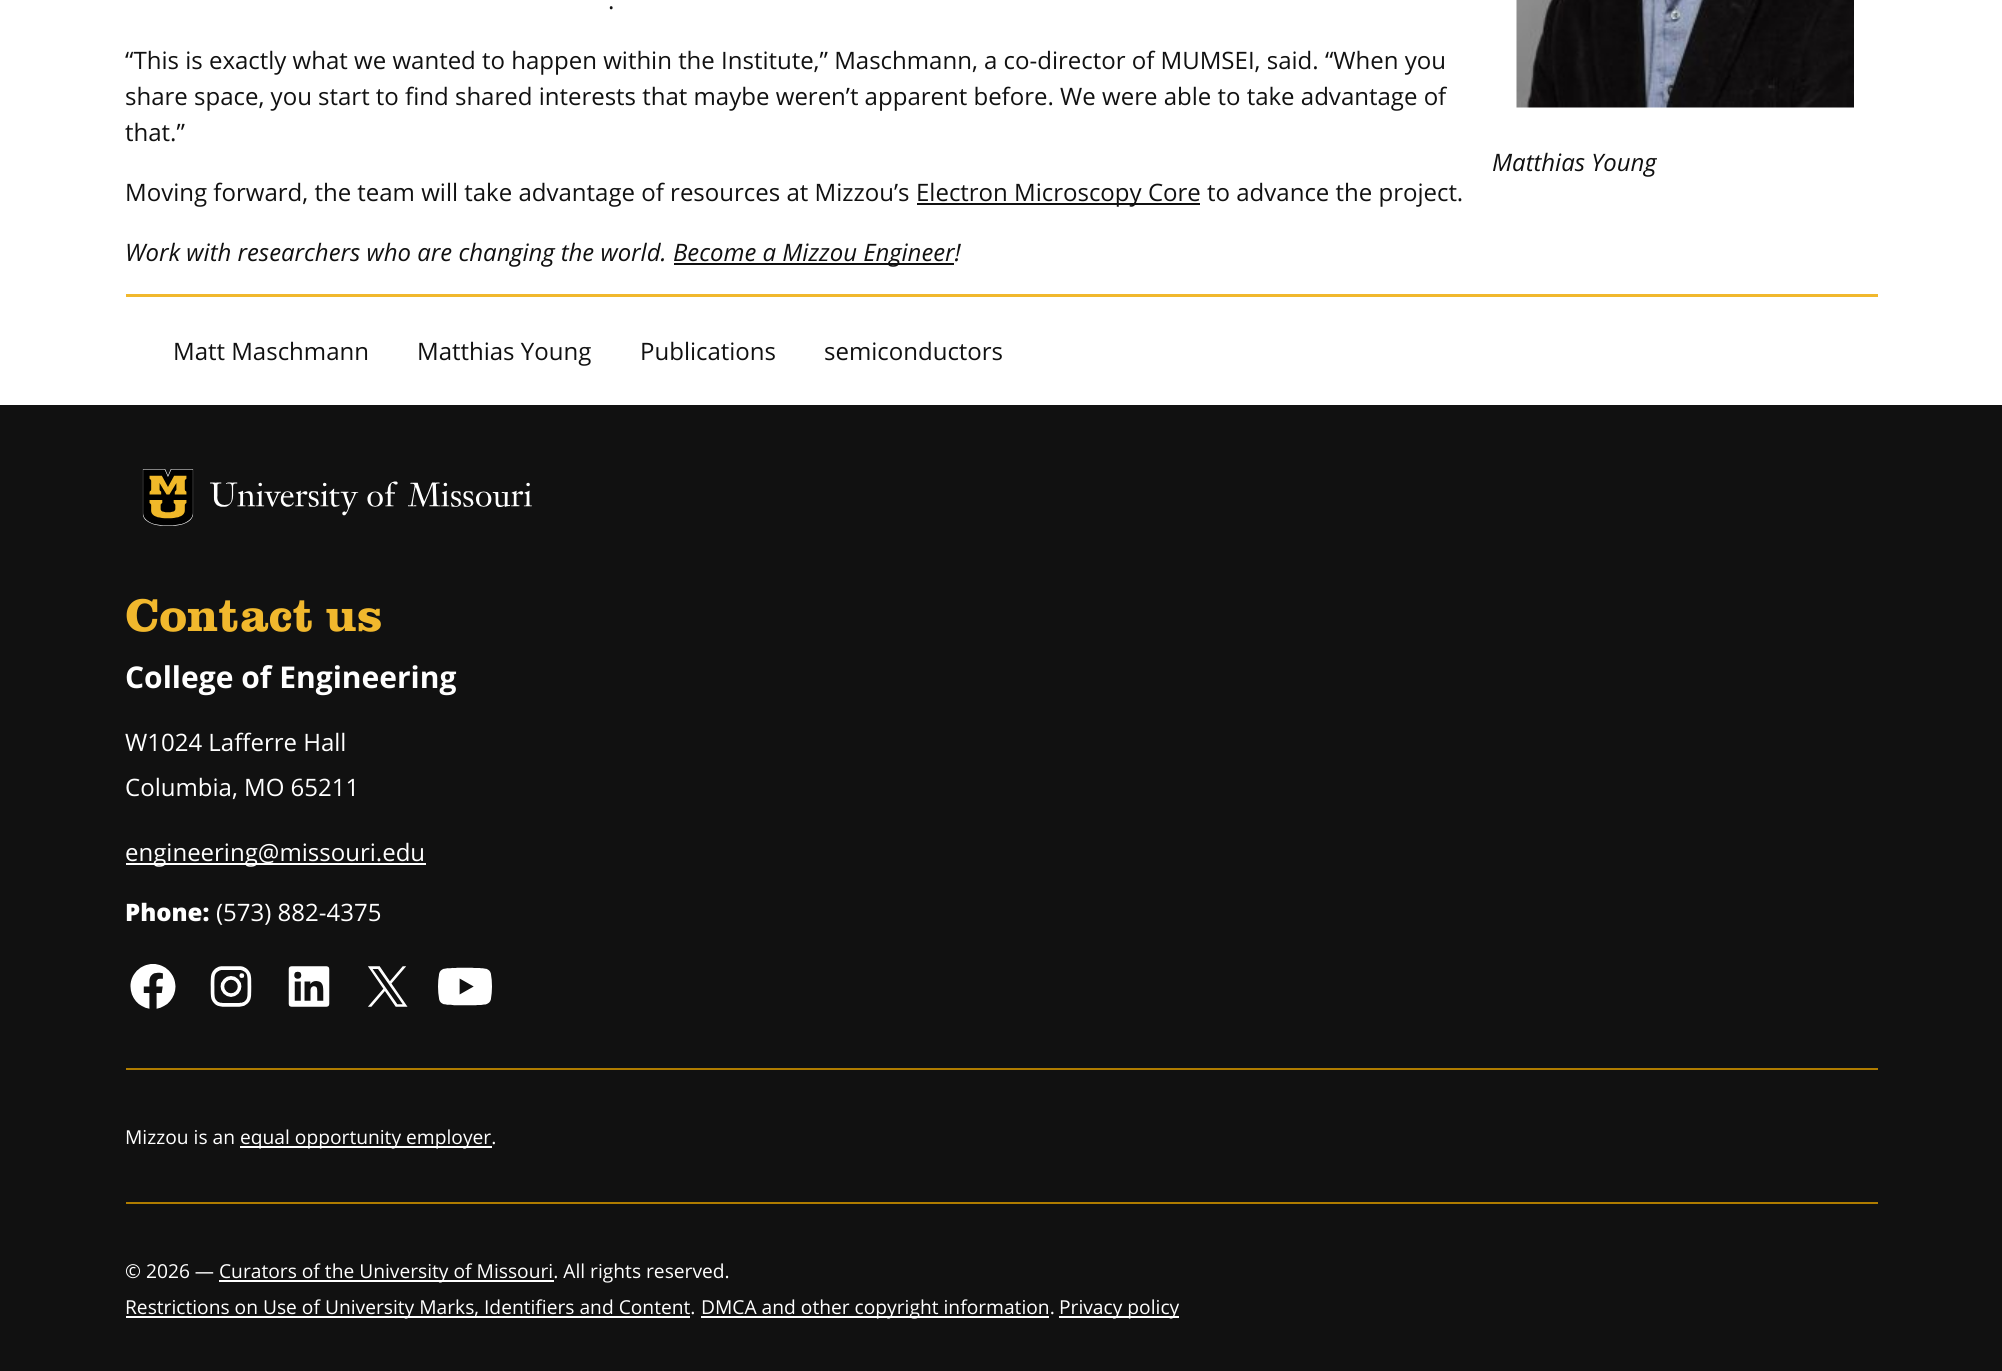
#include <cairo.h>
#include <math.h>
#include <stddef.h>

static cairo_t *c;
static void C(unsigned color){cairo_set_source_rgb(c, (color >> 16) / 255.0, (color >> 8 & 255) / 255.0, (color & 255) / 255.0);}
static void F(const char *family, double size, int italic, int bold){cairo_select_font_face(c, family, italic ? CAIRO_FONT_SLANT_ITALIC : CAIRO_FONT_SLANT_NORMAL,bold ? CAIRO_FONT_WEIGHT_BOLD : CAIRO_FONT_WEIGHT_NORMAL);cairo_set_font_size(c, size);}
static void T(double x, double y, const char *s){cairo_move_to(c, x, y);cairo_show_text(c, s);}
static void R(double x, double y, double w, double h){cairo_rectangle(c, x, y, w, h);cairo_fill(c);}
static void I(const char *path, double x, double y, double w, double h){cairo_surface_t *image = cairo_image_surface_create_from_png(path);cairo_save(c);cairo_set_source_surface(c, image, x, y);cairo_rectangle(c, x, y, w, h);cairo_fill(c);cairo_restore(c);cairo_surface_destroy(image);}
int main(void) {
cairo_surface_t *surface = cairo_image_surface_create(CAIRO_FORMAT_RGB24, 2002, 1371);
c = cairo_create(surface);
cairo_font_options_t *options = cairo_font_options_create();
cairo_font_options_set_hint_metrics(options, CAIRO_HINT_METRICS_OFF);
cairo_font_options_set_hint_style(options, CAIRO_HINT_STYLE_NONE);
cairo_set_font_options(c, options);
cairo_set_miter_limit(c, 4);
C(0xffffff);
cairo_paint(c);
F("Open Sans",24,0,0);
C(0x111111);
T(608,9,".");
T(125,69,"“This is exactly what we wanted to happen within the Institute,” Maschmann, a co-director of MUMSEI, said. “When you");
T(125,105,"share space, you start to find shared interests that maybe weren’t apparent before. We were able to take advantage of");
T(125,141,"that.”");
I("1.png",1516,0,338,108);
F("Open Sans",24,1,0);
T(1492,171,"Matthias Young");
F("Open Sans",24,0,0);
T(125,201,"Moving forward, the team will take advantage of resources at Mizzou’s");
R(917,203,283,2);
T(916,201,"Electron Microscopy Core to advance the project.");
F("Open Sans",24,1,0);
T(125,261,"Work with researchers who are changing the world.");
R(674,263,280,2);
T(673,261,"Become a Mizzou Engineer!");
C(0xf1b82d);
R(126,294,1752,3);
F("Open Sans",24,0,0);
C(0x111111);
T(173,360,"Matt Maschmann");
T(417,360,"Matthias Young");
T(640,360,"Publications");
T(824,360,"semiconductors");
R(0,405,2002,966);
I("2.png",142,469,52,57);
I("3.png",210,481,322,35);
F("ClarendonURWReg",47,0,0);
C(0xf1b82d);
T(125,631,"Contact us");
F("Open Sans",30,0,1);
C(0xffffff);
T(125,688,"College of Engineering");
F("Open Sans",24,0,0);
T(125,751,"W1024 Lafferre Hall");
T(125,796,"Columbia, MO 65211");
R(126,863,300,2);
T(125,861,"engineering@missouri.edu");
F("Open Sans ExtraBold",24,0,0);
T(125,921,"Phone:");
F("Open Sans",24,0,0);
T(216,921,"(573) 882-4375");
I("4.png",130,964,46,45);
I("5.png",210,966,42,41);
I("6.png",288,966,42,41);
I("7.png",368,966,40,41);
I("8.png",438,967,54,39);
C(0xaf7c00);
R(126,1068,1752,2);
F("Open Sans",19.2,0,0);
C(0xffffff);
T(125,1144,"Mizzou is an");
R(240,1146,252,2);
T(240,1144,"equal opportunity employer.");
C(0xaf7c00);
R(126,1202,1752,2);
C(0xffffff);
T(125,1278,"© 2026 —");
R(219,1280,335,2);
T(219,1278,"Curators of the University of Missouri. All rights reserved.");
R(126,1316,564,2);
T(125,1314,"Restrictions on Use of University Marks, Identifiers and Content.");
R(701,1316,348,2);
T(701,1314,"DMCA and other copyright information.");
R(1059,1316,120,2);
T(1059,1314,"Privacy policy");
cairo_surface_write_to_png(surface, "o.png");
cairo_font_options_destroy(options);
cairo_destroy(c);
cairo_surface_destroy(surface);
return 0;
}
